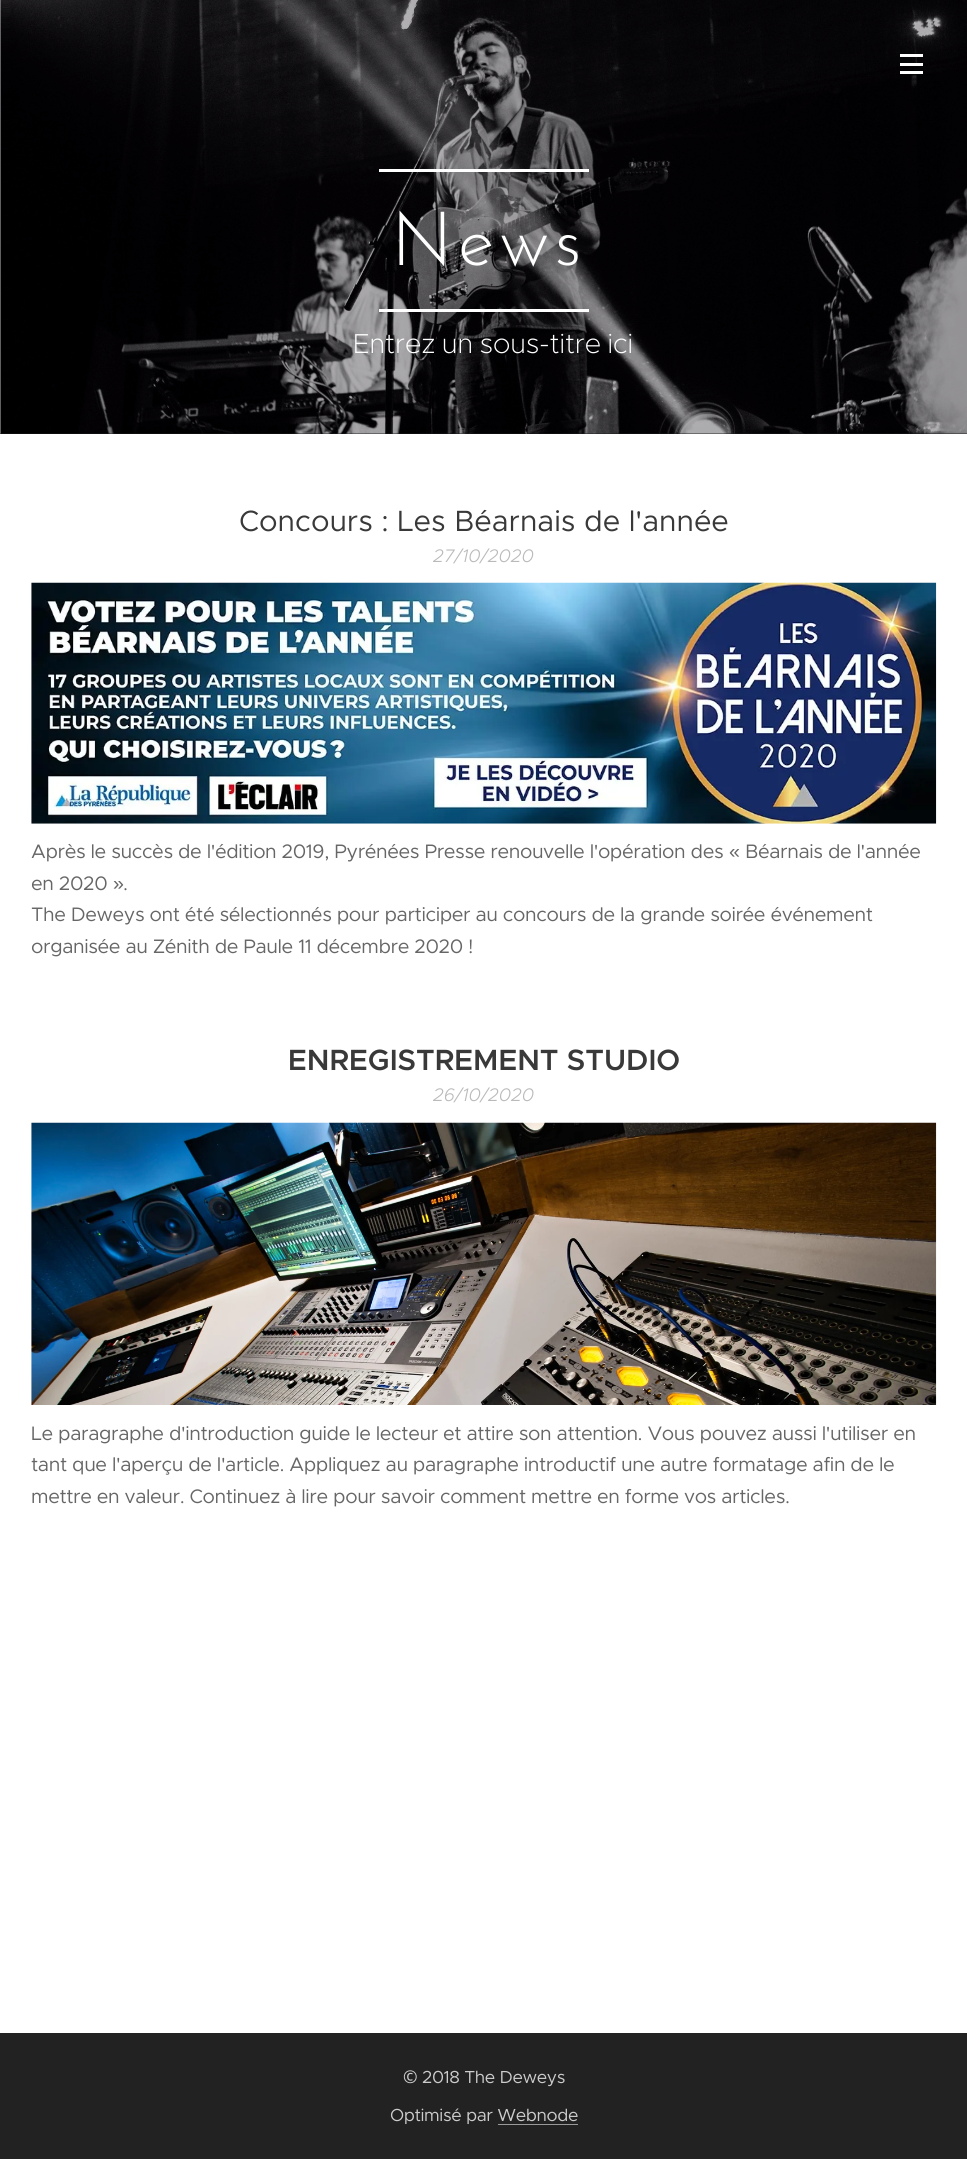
#include <cairo.h>
#include <math.h>
#include <stddef.h>

static cairo_t *c;
static void C(unsigned color){cairo_set_source_rgb(c, (color >> 16) / 255.0, (color >> 8 & 255) / 255.0, (color & 255) / 255.0);}
static void F(const char *family, double size, int italic, int bold){cairo_select_font_face(c, family, italic ? CAIRO_FONT_SLANT_ITALIC : CAIRO_FONT_SLANT_NORMAL,bold ? CAIRO_FONT_WEIGHT_BOLD : CAIRO_FONT_WEIGHT_NORMAL);cairo_set_font_size(c, size);}
static void T(double x, double y, const char *s){cairo_move_to(c, x, y);cairo_show_text(c, s);}
static void L(double x, double y, const char *s, double letter, double word){cairo_move_to(c, x, y);while (*s) {char ch[5] = {0};int n = 0;do ch[n++] = *s++; while ((*s & 0xC0) == 0x80);cairo_show_text(c, ch);cairo_rel_move_to(c, letter + word * (*ch == ' '), 0);}}
static void R(double x, double y, double w, double h){cairo_rectangle(c, x, y, w, h);cairo_fill(c);}
static void I(const char *path, double x, double y, double w, double h){cairo_surface_t *image = cairo_image_surface_create_from_png(path);cairo_save(c);cairo_set_source_surface(c, image, x, y);cairo_rectangle(c, x, y, w, h);cairo_fill(c);cairo_restore(c);cairo_surface_destroy(image);}
int main(void) {
cairo_surface_t *surface = cairo_image_surface_create(CAIRO_FORMAT_RGB24, 967, 2159);
c = cairo_create(surface);
cairo_font_options_t *options = cairo_font_options_create();
cairo_font_options_set_hint_metrics(options, CAIRO_HINT_METRICS_OFF);
cairo_font_options_set_hint_style(options, CAIRO_HINT_STYLE_NONE);
cairo_set_font_options(c, options);
cairo_set_miter_limit(c, 4);
C(0xffffff);
cairo_paint(c);
C(0x1b1b1b);
R(0,433,967,1);
I("1.png",0,0,967,434);
C(0xffffff);
R(900,63,23,3);
R(900,54,23,3);
R(900,71,23,3);
R(379,169,210,3);
R(379,309,210,3);
F("Josefin Sans Light",75,0,0);
L(391,265,"News",5,0);
F("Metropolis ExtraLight",27.5,0,0);
L(353,353,"Entrez un sous-titre ici",0,-1.5);
F("Metropolis",29.4,0,0);
C(0x393939);
T(239,531,"Concours : Les Béarnais de l'année");
F("Metropolis Light",18.25,1,0);
C(0xbababa);
T(433,562,"27/10/2020");
I("2.png",31,582,906,242);
F("Metropolis",19.6,0,0);
C(0x666666);
L(31,858,"Après le succès de l'édition 2019, Pyrénées Presse renouvelle l'opération des",-.4,0);
F("Liberation Sans",19.6,0,0);
L(729,858,"«",-.4,0);
F("Metropolis",19.6,0,0);
L(745,858,"Béarnais de l'année",-.4,0);
L(31,890,"en 2020",-.4,0);
F("Liberation Sans",19.6,0,0);
L(113,890,"»",-.4,0);
F("Metropolis",19.6,0,0);
L(123,890,".",-.4,0);
L(31,921,"The Deweys ont été sélectionnés pour participer au concours de la grande soirée événement",-.4,0);
L(31,953,"organisée au Zénith de Paule 11 décembre 2020 !",-.4,0);
F("Metropolis SemiBold",29.4,0,0);
C(0x393939);
T(288,1070,"ENREGISTREMENT STUDIO");
F("Metropolis Light",18.25,1,0);
C(0xbababa);
T(433,1101,"26/10/2020");
I("3.png",31,1122,906,283);
F("Metropolis",19.6,0,0);
C(0x666666);
L(31,1440,"Le paragraphe d'introduction guide le lecteur et attire son attention. Vous pouvez aussi l'utiliser en",-.4,0);
L(31,1471,"tant que l'aperçu de l'article. Appliquez au paragraphe introductif une autre formatage afin de le",-.4,0);
L(31,1503,"mettre en valeur. Continuez à lire pour savoir comment mettre en forme vos articles.",-.4,0);
C(0x222222);
R(0,2033,967,126);
F("Noto Sans",17.5,0,0);
C(0xcccccc);
L(403,2083,"©",-.4,0);
F("Metropolis",17.5,0,0);
L(422,2083,"2018 The Deweys",-.4,0);
L(390,2121,"Optimisé par Webnode",-.4,0);
C(0x999999);
R(498,2124,80,1);
cairo_surface_write_to_png(surface, "o.png");
cairo_font_options_destroy(options);
cairo_destroy(c);
cairo_surface_destroy(surface);
return 0;
}
